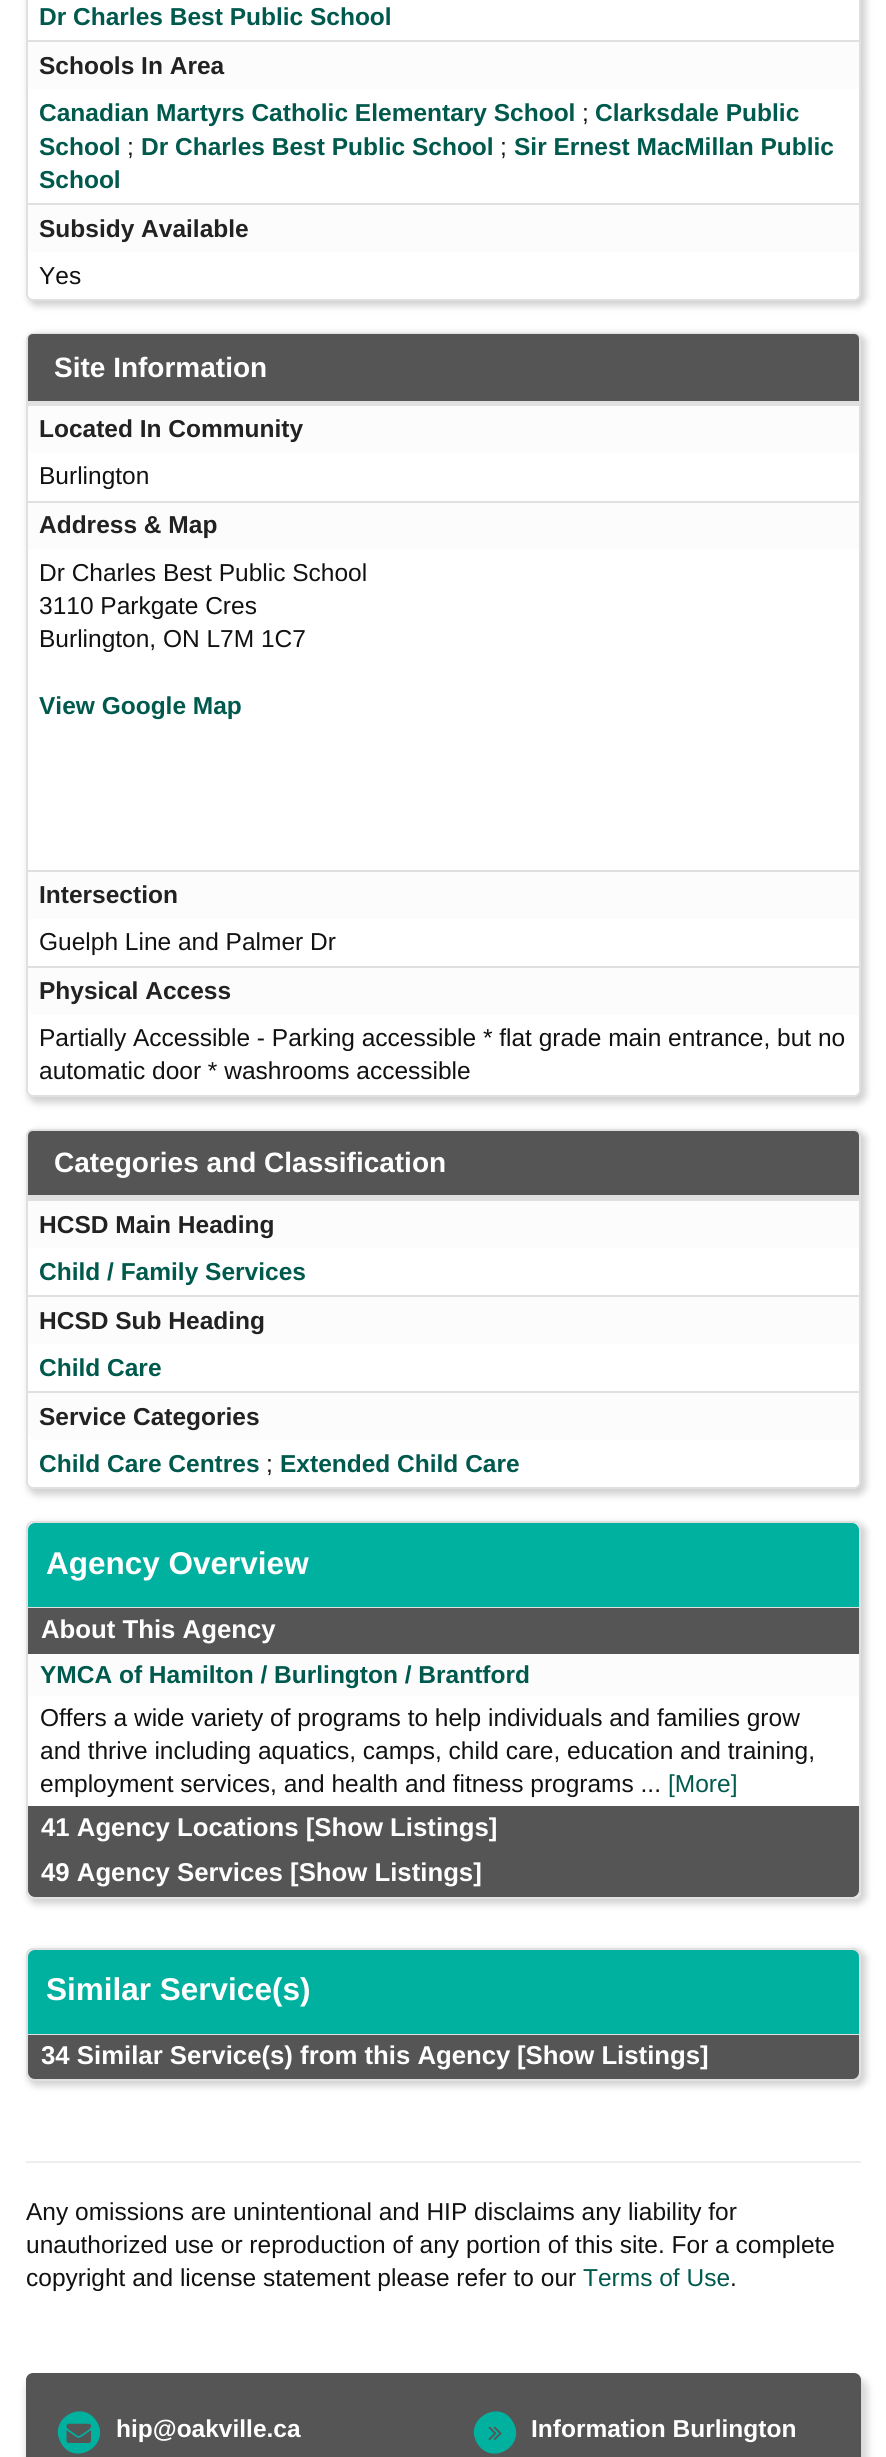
#include <cairo.h>
#include <math.h>
#include <stddef.h>

static cairo_t *c;
static void C(unsigned color){cairo_set_source_rgb(c, (color >> 16) / 255.0, (color >> 8 & 255) / 255.0, (color & 255) / 255.0);}
static void F(const char *family, double size, int italic, int bold){cairo_select_font_face(c, family, italic ? CAIRO_FONT_SLANT_ITALIC : CAIRO_FONT_SLANT_NORMAL,bold ? CAIRO_FONT_WEIGHT_BOLD : CAIRO_FONT_WEIGHT_NORMAL);cairo_set_font_size(c, size);}
static void T(double x, double y, const char *s){cairo_move_to(c, x, y);cairo_show_text(c, s);}
static void R(double x, double y, double w, double h){cairo_rectangle(c, x, y, w, h);cairo_fill(c);}
static void Q(double x, double y, double w, double h, double r){cairo_new_sub_path(c);cairo_arc(c, x + w - r, y + h - r, r, 0, M_PI / 2);cairo_arc(c, x + r, y + h - r, r, M_PI / 2, M_PI);cairo_arc(c, x + r, y + r, r, M_PI, 1.5 * M_PI);cairo_arc(c, x + w - r, y + r, r, 1.5 * M_PI, 2 * M_PI);cairo_close_path(c);}
static void S(double x, double y, double w, double h, double r, double blur, double alpha){cairo_push_group_with_content(c, CAIRO_CONTENT_ALPHA);cairo_set_operator(c, CAIRO_OPERATOR_SOURCE);for (int i = 15; i >= -15 && fmin(w, h) + blur * i / 3 > 0; i -= 2) {double e = blur * i / 6;cairo_set_source_rgba(c, 0, 0, 0, alpha * erfc((i - 1) / 8.5) / 2);Q(x - e, y - e, w + 2 * e, h + 2 * e, fmax(0, fmin(r + e + blur * .6, fmin(w, h) / 2 + e)));cairo_fill(c);}cairo_pattern_t *soft = cairo_pop_group(c);cairo_mask(c, soft);cairo_pattern_destroy(soft);}
static void I(const char *path, double x, double y, double w, double h){cairo_surface_t *image = cairo_image_surface_create_from_png(path);cairo_save(c);cairo_set_source_surface(c, image, x, y);cairo_rectangle(c, x, y, w, h);cairo_fill(c);cairo_restore(c);cairo_surface_destroy(image);}
int main(void) {
cairo_surface_t *surface = cairo_image_surface_create(CAIRO_FORMAT_RGB24, 886, 2457);
c = cairo_create(surface);
cairo_font_options_t *options = cairo_font_options_create();
cairo_font_options_set_hint_metrics(options, CAIRO_HINT_METRICS_OFF);
cairo_font_options_set_hint_style(options, CAIRO_HINT_STYLE_NONE);
cairo_set_font_options(c, options);
cairo_set_miter_limit(c, 4);
C(0xffffff);
cairo_paint(c);
C(0x666666);
S(28,-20,838,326,9,3.5,.3);
C(0xffffff);
Q(27,-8,833,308,6);
cairo_fill_preserve(c);
C(0xe0e0e0);
cairo_stroke(c);
F("Liberation Sans",24.5,0,1);
C(0x00594d);
T(39,25,"Dr Charles Best Public School");
C(0xfcfcfc);
R(28,42,831,47);
C(0xe0e0e0);
R(28,40,831,2);
C(0x222222);
T(39,74,"Schools In Area");
C(0x00594d);
T(39,121,"Canadian Martyrs Catholic Elementary School");
F("Liberation Sans",24.5,0,0);
C(0x111111);
T(582,121,";");
F("Liberation Sans",24.5,0,1);
C(0x00594d);
T(595,121,"Clarksdale Public");
T(39,155,"School");
F("Liberation Sans",24.5,0,0);
C(0x111111);
T(127,155,";");
F("Liberation Sans",24.5,0,1);
C(0x00594d);
T(141,155,"Dr Charles Best Public School");
F("Liberation Sans",24.5,0,0);
C(0x111111);
T(500,155,";");
F("Liberation Sans",24.5,0,1);
C(0x00594d);
T(514,155,"Sir Ernest MacMillan Public");
T(39,188,"School");
C(0xfcfcfc);
cairo_new_path(c);
cairo_move_to(c,28,203);
cairo_line_to(c,859,203);
cairo_line_to(c,859,252);
cairo_line_to(c,35,252);
cairo_curve_to(c,31,252,28,249,28,245);
cairo_close_path(c);
cairo_fill(c);
C(0xe0e0e0);
R(28,203,831,2);
C(0x222222);
T(39,237,"Subsidy Available");
F("Liberation Sans",24.5,0,0);
C(0x111111);
T(39,284,"Yes");
C(0x666666);
S(28,334,838,769,9,3.5,.3);
C(0xffffff);
Q(27,334,833,762,6);
cairo_fill_preserve(c);
C(0xe0e0e0);
cairo_stroke(c);
C(0x555555);
cairo_new_path(c);
cairo_move_to(c,33,334);
cairo_line_to(c,854,334);
cairo_curve_to(c,857,334,859,336,859,339);
cairo_line_to(c,859,403);
cairo_line_to(c,28,403);
cairo_line_to(c,28,339);
cairo_curve_to(c,28,336,30,334,33,334);
cairo_close_path(c);
cairo_fill(c);
C(0xe0e0e0);
R(28,401,831,5);
F("Liberation Sans",28,0,1);
C(0xffffff);
T(54,377,"Site Information");
C(0xfcfcfc);
R(28,406,831,47);
F("Liberation Sans",24.5,0,1);
C(0x222222);
T(39,437,"Located In Community");
F("Liberation Sans",24.5,0,0);
C(0x111111);
T(39,484,"Burlington");
C(0xfcfcfc);
R(28,503,831,47);
C(0xe0e0e0);
R(28,501,831,2);
F("Liberation Sans",24.5,0,1);
C(0x222222);
T(39,533,"Address & Map");
F("Liberation Sans",24.5,0,0);
C(0x111111);
T(39,581,"Dr Charles Best Public School");
T(39,614,"3110 Parkgate Cres");
T(39,647,"Burlington, ON L7M 1C7");
F("Liberation Sans",24.5,0,1);
C(0x00594d);
T(39,714,"View Google Map");
C(0xfcfcfc);
R(28,872,831,47);
C(0xe0e0e0);
R(28,870,831,2);
C(0x222222);
T(39,903,"Intersection");
F("Liberation Sans",24.5,0,0);
C(0x111111);
T(39,950,"Guelph Line and Palmer Dr");
C(0xfcfcfc);
cairo_new_path(c);
cairo_move_to(c,28,966);
cairo_line_to(c,859,966);
cairo_line_to(c,859,1015);
cairo_line_to(c,35,1015);
cairo_curve_to(c,31,1015,28,1012,28,1008);
cairo_close_path(c);
cairo_fill(c);
C(0xe0e0e0);
R(28,966,831,2);
F("Liberation Sans",24.5,0,1);
C(0x222222);
T(39,999,"Physical Access");
F("Liberation Sans",24.5,0,0);
C(0x111111);
T(39,1046,"Partially Accessible - Parking accessible * flat grade main entrance, but no");
T(39,1079,"automatic door * washrooms accessible");
C(0x666666);
S(28,1131,838,364,9,3.5,.3);
C(0xffffff);
Q(27,1130,833,358,6);
cairo_fill_preserve(c);
C(0xe0e0e0);
cairo_stroke(c);
C(0x555555);
cairo_new_path(c);
cairo_move_to(c,33,1131);
cairo_line_to(c,854,1131);
cairo_curve_to(c,857,1131,859,1133,859,1136);
cairo_line_to(c,859,1197);
cairo_line_to(c,28,1197);
cairo_line_to(c,28,1136);
cairo_curve_to(c,28,1133,30,1131,33,1131);
cairo_close_path(c);
cairo_fill(c);
C(0xe0e0e0);
R(28,1195,831,6);
F("Liberation Sans",28,0,1);
C(0xffffff);
T(54,1172,"Categories and Classification");
C(0xfcfcfc);
R(28,1201,831,47);
F("Liberation Sans",24.5,0,1);
C(0x222222);
T(39,1233,"HCSD Main Heading");
C(0x00594d);
T(39,1280,"Child / Family Services");
C(0xfcfcfc);
R(28,1297,831,47);
C(0xe0e0e0);
R(28,1295,831,2);
C(0x222222);
T(39,1329,"HCSD Sub Heading");
C(0x00594d);
T(39,1376,"Child Care");
C(0xfcfcfc);
cairo_new_path(c);
cairo_move_to(c,28,1391);
cairo_line_to(c,859,1391);
cairo_line_to(c,859,1440);
cairo_line_to(c,35,1440);
cairo_curve_to(c,31,1440,28,1437,28,1433);
cairo_close_path(c);
cairo_fill(c);
C(0xe0e0e0);
R(28,1391,831,2);
C(0x222222);
T(39,1425,"Service Categories");
C(0x00594d);
T(39,1472,"Child Care Centres");
F("Liberation Sans",24.5,0,0);
C(0x111111);
T(266,1472,";");
F("Liberation Sans",24.5,0,1);
C(0x00594d);
T(280,1472,"Extended Child Care");
cairo_save(c);
cairo_set_fill_rule(c,CAIRO_FILL_RULE_EVEN_ODD);
cairo_new_path(c);
cairo_move_to(c,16,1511);
cairo_line_to(c,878,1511);
cairo_line_to(c,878,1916);
cairo_line_to(c,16,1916);
cairo_close_path(c);
cairo_move_to(c,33,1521);
cairo_line_to(c,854,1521);
cairo_curve_to(c,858,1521,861,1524,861,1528);
cairo_line_to(c,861,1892);
cairo_curve_to(c,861,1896,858,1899,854,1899);
cairo_line_to(c,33,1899);
cairo_curve_to(c,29,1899,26,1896,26,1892);
cairo_line_to(c,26,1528);
cairo_curve_to(c,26,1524,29,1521,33,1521);
cairo_close_path(c);
cairo_clip(c);
C(0x666666);
S(28,1523,838,381,9,3.5,.3);
cairo_restore(c);
Q(27,1522,833,376,6);
C(0xe0e0e0);
cairo_stroke(c);
C(0x00b19f);
cairo_new_path(c);
cairo_move_to(c,35,1523);
cairo_line_to(c,852,1523);
cairo_curve_to(c,856,1523,859,1526,859,1530);
cairo_line_to(c,859,1608);
cairo_line_to(c,28,1608);
cairo_line_to(c,28,1530);
cairo_curve_to(c,28,1526,31,1523,35,1523);
cairo_close_path(c);
cairo_fill(c);
C(0xe0e0e0);
R(28,1607,831,1);
F("Liberation Sans",31.5,0,1);
C(0xffffff);
T(46,1574,"Agency Overview");
C(0x555555);
R(28,1608,831,46);
F("Liberation Sans",25.75,0,1);
C(0xffffff);
T(41,1638,"About This Agency");
C(0xfcfcfc);
R(28,1654,831,42);
F("Liberation Sans",24.5,0,1);
C(0x00594d);
T(40,1683,"YMCA of Hamilton / Burlington / Brantford");
F("Liberation Sans",24.5,0,0);
C(0x111111);
T(40,1726,"Offers a wide variety of programs to help individuals and families grow");
T(40,1759,"and thrive including aquatics, camps, child care, education and training,");
T(40,1792,"employment services, and health and fitness programs ...");
C(0x00594d);
T(668,1792,"[More]");
C(0x555555);
R(28,1806,831,46);
F("Liberation Sans",25.75,0,1);
C(0xffffff);
T(41,1836,"41 Agency Locations [Show Listings]");
C(0x555555);
cairo_new_path(c);
cairo_move_to(c,28,1852);
cairo_line_to(c,859,1852);
cairo_line_to(c,859,1890);
cairo_curve_to(c,859,1894,856,1897,852,1897);
cairo_line_to(c,35,1897);
cairo_curve_to(c,31,1897,28,1894,28,1890);
cairo_close_path(c);
cairo_fill(c);
C(0xffffff);
T(41,1881,"49 Agency Services [Show Listings]");
C(0x666666);
S(28,1950,838,136,9,3.5,.3);
Q(27,1949,833,131,6);
C(0xe0e0e0);
cairo_stroke(c);
C(0x00b19f);
cairo_new_path(c);
cairo_move_to(c,35,1950);
cairo_line_to(c,852,1950);
cairo_curve_to(c,856,1950,859,1953,859,1957);
cairo_line_to(c,859,2035);
cairo_line_to(c,28,2035);
cairo_line_to(c,28,1957);
cairo_curve_to(c,28,1953,31,1950,35,1950);
cairo_close_path(c);
cairo_fill(c);
C(0xe0e0e0);
R(28,2034,831,1);
F("Liberation Sans",31.5,0,1);
C(0xffffff);
T(46,2000,"Similar Service(s)");
C(0x555555);
cairo_new_path(c);
cairo_move_to(c,28,2035);
cairo_line_to(c,859,2035);
cairo_line_to(c,859,2072);
cairo_curve_to(c,859,2076,856,2079,852,2079);
cairo_line_to(c,35,2079);
cairo_curve_to(c,31,2079,28,2076,28,2072);
cairo_close_path(c);
cairo_fill(c);
F("Liberation Sans",25.75,0,1);
C(0xffffff);
T(41,2064,"34 Similar Service(s) from this Agency");
T(517,2064,"[Show Listings]");
C(0xeeeeee);
R(26,2161,835,2);
F("Liberation Sans",24.5,0,0);
C(0x111111);
T(26,2220,"Any omissions are unintentional and HIP disclaims any liability for");
T(26,2253,"unauthorized use or reproduction of any portion of this site. For a complete");
T(26,2286,"copyright and license statement please refer to our");
C(0x00594d);
T(583,2286,"Terms of Use");
C(0x111111);
T(730,2286,".");
C(0x666666);
S(26,2378,842,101,11,3.5,.25);
C(0x555555);
Q(27,2374,833,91,6);
cairo_fill_preserve(c);
cairo_stroke(c);
C(0x00b19f);
cairo_new_path(c);
cairo_move_to(c,97,2422);
cairo_curve_to(c,111,2446,74,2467,61,2443);
cairo_curve_to(c,47,2419,83,2398,97,2422);
cairo_close_path(c);
cairo_fill(c);
I("1.png",66,2423,25,20);
F("Liberation Sans",24.5,0,1);
C(0xffffff);
T(116,2437,"hip@oakville.ca");
C(0x00b19f);
cairo_new_path(c);
cairo_move_to(c,513,2422);
cairo_curve_to(c,527,2446,491,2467,477,2443);
cairo_curve_to(c,463,2419,500,2398,513,2422);
cairo_close_path(c);
cairo_fill(c);
I("2.png",488,2426,14,15);
C(0xffffff);
T(531,2437,"Information Burlington");
cairo_surface_write_to_png(surface, "o.png");
cairo_font_options_destroy(options);
cairo_destroy(c);
cairo_surface_destroy(surface);
return 0;
}
